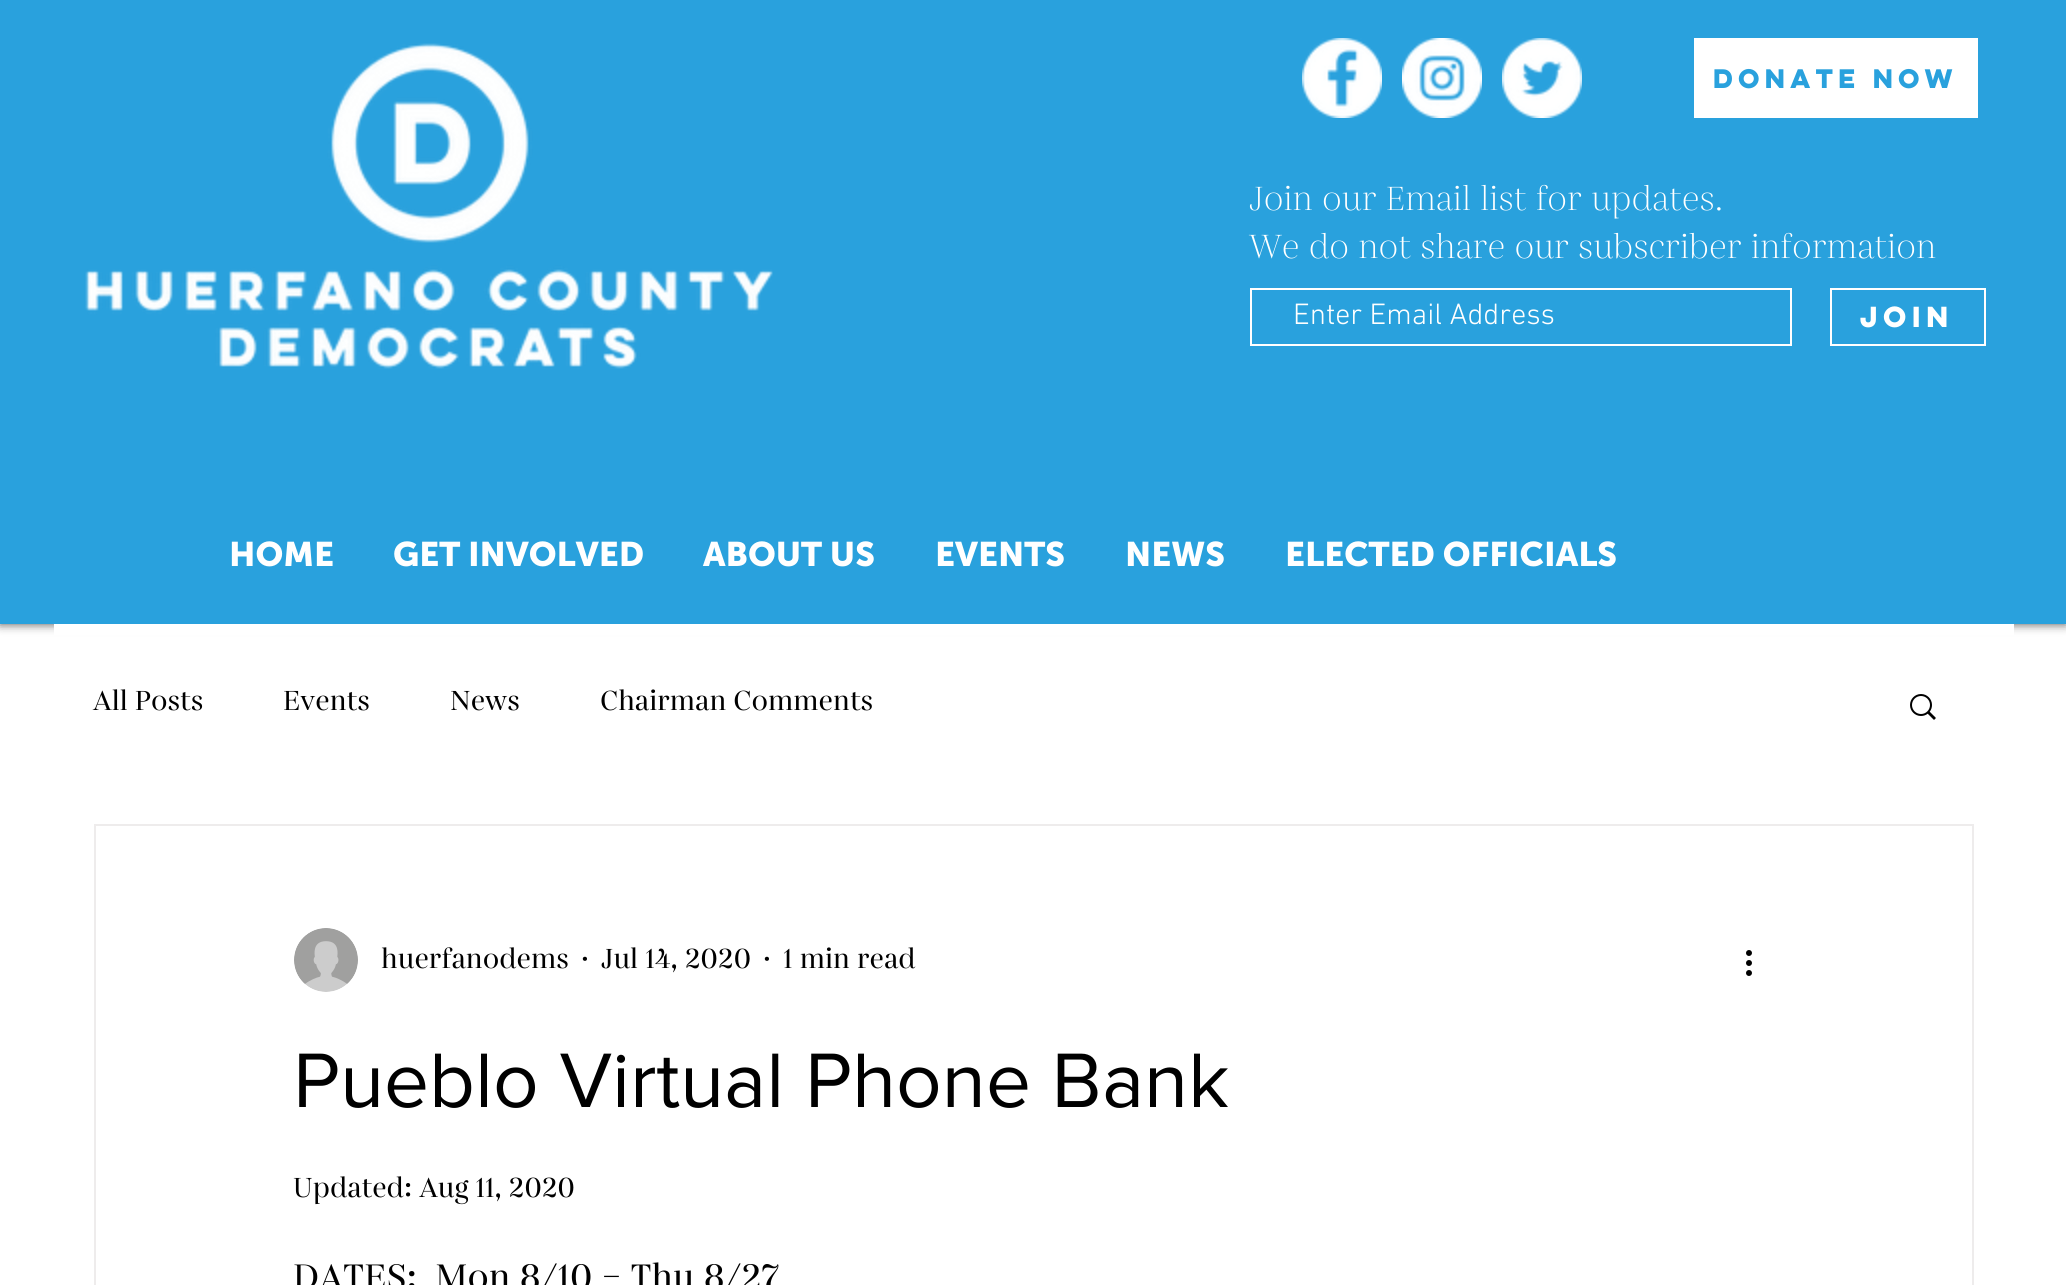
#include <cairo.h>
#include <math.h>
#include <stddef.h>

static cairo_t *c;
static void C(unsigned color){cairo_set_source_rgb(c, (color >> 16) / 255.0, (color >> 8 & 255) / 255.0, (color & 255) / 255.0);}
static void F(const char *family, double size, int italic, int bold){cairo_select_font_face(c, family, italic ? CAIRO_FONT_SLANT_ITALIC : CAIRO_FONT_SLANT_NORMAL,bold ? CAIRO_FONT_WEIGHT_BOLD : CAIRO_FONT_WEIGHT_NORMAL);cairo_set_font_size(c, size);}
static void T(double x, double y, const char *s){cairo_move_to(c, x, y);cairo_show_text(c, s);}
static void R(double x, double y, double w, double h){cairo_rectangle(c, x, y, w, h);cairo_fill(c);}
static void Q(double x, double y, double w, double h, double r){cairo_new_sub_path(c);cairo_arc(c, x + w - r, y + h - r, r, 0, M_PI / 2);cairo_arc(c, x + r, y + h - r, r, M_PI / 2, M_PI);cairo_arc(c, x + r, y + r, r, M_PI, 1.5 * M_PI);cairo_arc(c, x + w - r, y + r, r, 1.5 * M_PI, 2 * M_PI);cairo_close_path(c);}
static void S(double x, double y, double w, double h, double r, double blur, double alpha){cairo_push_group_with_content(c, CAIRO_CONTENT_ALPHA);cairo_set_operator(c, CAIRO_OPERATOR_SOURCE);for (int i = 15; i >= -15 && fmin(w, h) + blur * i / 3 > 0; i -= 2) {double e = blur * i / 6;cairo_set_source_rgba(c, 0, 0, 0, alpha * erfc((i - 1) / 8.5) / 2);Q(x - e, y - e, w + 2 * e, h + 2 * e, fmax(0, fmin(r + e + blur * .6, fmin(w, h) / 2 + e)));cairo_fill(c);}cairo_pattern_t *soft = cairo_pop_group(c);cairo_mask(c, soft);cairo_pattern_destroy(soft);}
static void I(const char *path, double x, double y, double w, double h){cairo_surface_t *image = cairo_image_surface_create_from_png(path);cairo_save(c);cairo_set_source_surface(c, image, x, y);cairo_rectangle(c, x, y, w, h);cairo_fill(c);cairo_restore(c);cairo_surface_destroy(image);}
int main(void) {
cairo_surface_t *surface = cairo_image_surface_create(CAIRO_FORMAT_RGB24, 2066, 1285);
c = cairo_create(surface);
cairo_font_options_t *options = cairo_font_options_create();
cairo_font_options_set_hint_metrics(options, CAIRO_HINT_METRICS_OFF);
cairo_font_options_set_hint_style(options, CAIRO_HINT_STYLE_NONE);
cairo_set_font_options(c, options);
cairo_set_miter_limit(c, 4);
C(0xffffff);
cairo_paint(c);
C(0x000000);
S(0,0,2066,624,0,5,.7);
C(0x29a1dd);
R(0,0,2066,624);
I("1.png",85,43,688,326);
I("2.png",1302,38,80,80);
I("3.png",1402,38,80,80);
I("4.png",1502,38,80,80);
C(0xffffff);
R(1694,38,284,80);
F("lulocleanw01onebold",24,0,1);
C(0x29a1dd);
T(1713,88,"DONATE NOW");
F("Gabriela Light",34,0,0);
C(0xffffff);
T(1249,210,"Join our Email list for updates.");
T(1249,258,"We do not share our subscriber information");
cairo_rectangle(c,1251,289,540,56);
cairo_stroke(c);
F("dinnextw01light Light",30,0,0);
T(1293,324,"Enter Email Address");
cairo_rectangle(c,1831,289,154,56);
cairo_stroke(c);
F("lulocleanw01onebold",26,0,1);
T(1860,327,"Join");
F("Museo Sans",34,0,1);
T(229,566,"HOME");
T(393,566,"GET INVOLVED");
T(703,566,"ABOUT US");
T(935,566,"EVENTS");
T(1125,566,"NEWS");
T(1285,566,"ELECTED OFFICIALS");
R(54,624,1960,11);
F("Gabriela Medium",28,0,0);
C(0x000000);
T(93,710,"All Posts");
T(283,710,"Events");
T(450,710,"News");
T(600,710,"Chairman Comments");
I("5.png",1910,694,26,26);
cairo_rectangle(c,95,825,1878,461);
C(0xeeecec);
cairo_stroke(c);
I("6.png",294,928,64,64);
C(0x000000);
T(381,968,"huerfanodems");
T(581,968,"·");
T(601,968,"Jul 14, 2020");
T(763,968,"·");
T(783,968,"1 min read");
I("7.png",1746,950,6,26);
F("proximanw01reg",80,0,0);
T(293,1107,"Pueblo Virtual Phone Bank");
F("Gabriela Medium",28,0,0);
T(293,1197,"Updated: Aug 11, 2020");
F("Gabriela Medium",36,0,0);
T(293,1289,"DATES:  Mon 8/10 – Thu 8/27");
cairo_surface_write_to_png(surface, "o.png");
cairo_font_options_destroy(options);
cairo_destroy(c);
cairo_surface_destroy(surface);
return 0;
}
